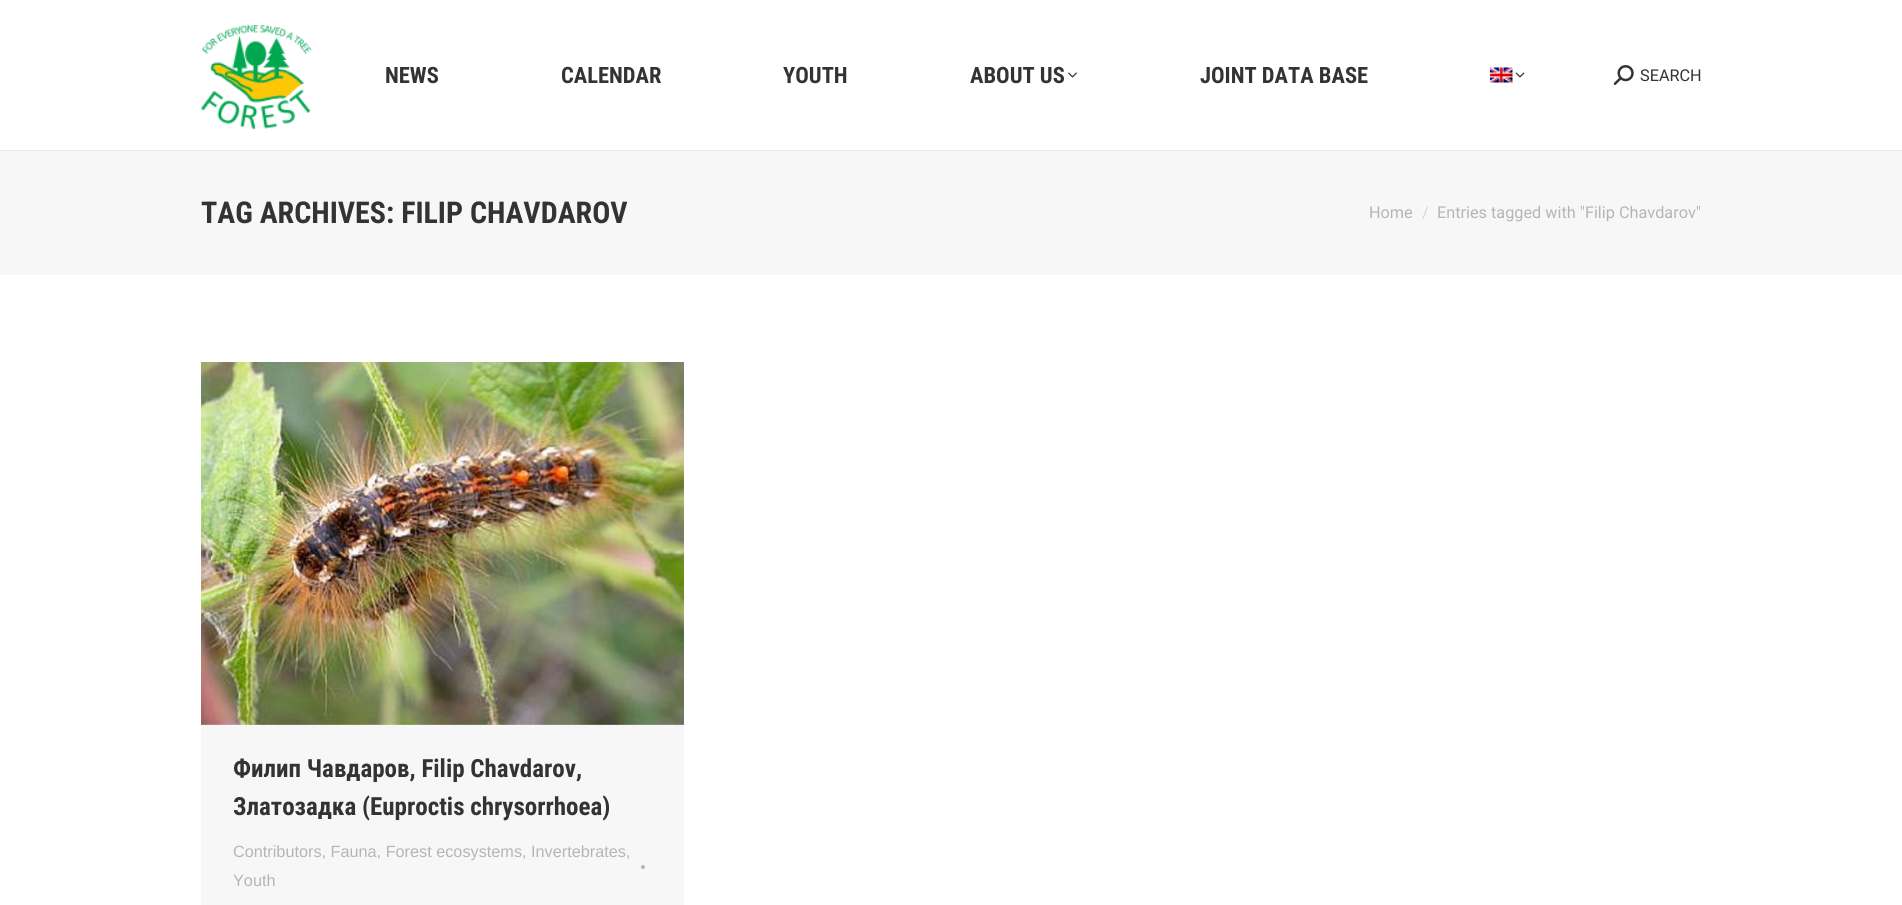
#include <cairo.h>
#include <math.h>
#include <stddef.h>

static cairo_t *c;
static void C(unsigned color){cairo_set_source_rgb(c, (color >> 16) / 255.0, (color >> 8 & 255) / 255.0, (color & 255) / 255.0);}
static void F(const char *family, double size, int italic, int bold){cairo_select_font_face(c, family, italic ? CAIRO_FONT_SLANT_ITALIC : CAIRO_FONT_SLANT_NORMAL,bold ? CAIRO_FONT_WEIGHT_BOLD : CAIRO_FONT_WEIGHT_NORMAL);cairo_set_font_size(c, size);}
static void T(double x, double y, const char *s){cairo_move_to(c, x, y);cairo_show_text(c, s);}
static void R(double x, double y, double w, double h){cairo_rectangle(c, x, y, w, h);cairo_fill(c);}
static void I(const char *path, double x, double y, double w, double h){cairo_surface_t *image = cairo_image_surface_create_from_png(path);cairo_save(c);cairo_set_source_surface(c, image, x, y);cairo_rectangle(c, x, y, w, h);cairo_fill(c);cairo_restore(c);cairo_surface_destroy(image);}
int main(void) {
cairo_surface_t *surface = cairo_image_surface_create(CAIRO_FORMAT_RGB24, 1902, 905);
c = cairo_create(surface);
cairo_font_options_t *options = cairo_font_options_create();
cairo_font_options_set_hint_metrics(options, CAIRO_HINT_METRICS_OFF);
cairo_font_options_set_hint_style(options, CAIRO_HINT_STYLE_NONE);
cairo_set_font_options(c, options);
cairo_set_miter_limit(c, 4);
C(0xffffff);
cairo_paint(c);
C(0xe7e7e7);
R(0,150,1902,1);
I("1.png",201,25,111,104);
F("Roboto Condensed",22.5,0,1);
C(0x333333);
T(385,83,"NEWS");
T(561,83,"CALENDAR");
T(783,83,"YOUTH");
T(970,83,"ABOUT US");
I("2.png",1068,72,9,6);
T(1200,83,"JOINT DATA BASE");
I("3.png",1490,67,23,16);
I("4.png",1515,72,10,6);
I("5.png",1613,65,21,20);
F("Roboto",16.25,0,0);
T(1640,81,"SEARCH");
C(0xf7f7f7);
R(0,151,1902,124);
F("Roboto Condensed",30,0,1);
C(0x333333);
T(201,223,"TAG ARCHIVES: FILIP CHAVDAROV");
F("Roboto",16.25,0,0);
C(0xb4b5bb);
T(1369,218,"Home");
C(0xd6d6d9);
T(1422,218,"/");
C(0xb4b5bb);
T(1437,218,"Entries tagged with \"Filip Chavdarov\"");
C(0xf7f7f7);
R(201,724,483,181);
I("6.png",201,362,483,363);
F("Roboto Condensed",25,0,1);
C(0x333333);
T(233,777,"Филип Чавдаров, Filip Chavdarov,");
T(233,815,"Златозадка (Euproctis chrysorrhoea)");
F("Liberation Sans",16.25,0,0);
C(0xb4b5bb);
T(233,857,"Contributors, Fauna, Forest ecosystems, Invertebrates,");
cairo_new_path(c);
cairo_arc(c,643,867,2,0,2 * M_PI);
cairo_fill(c);
T(233,886,"Youth");
cairo_surface_write_to_png(surface, "o.png");
cairo_font_options_destroy(options);
cairo_destroy(c);
cairo_surface_destroy(surface);
return 0;
}
